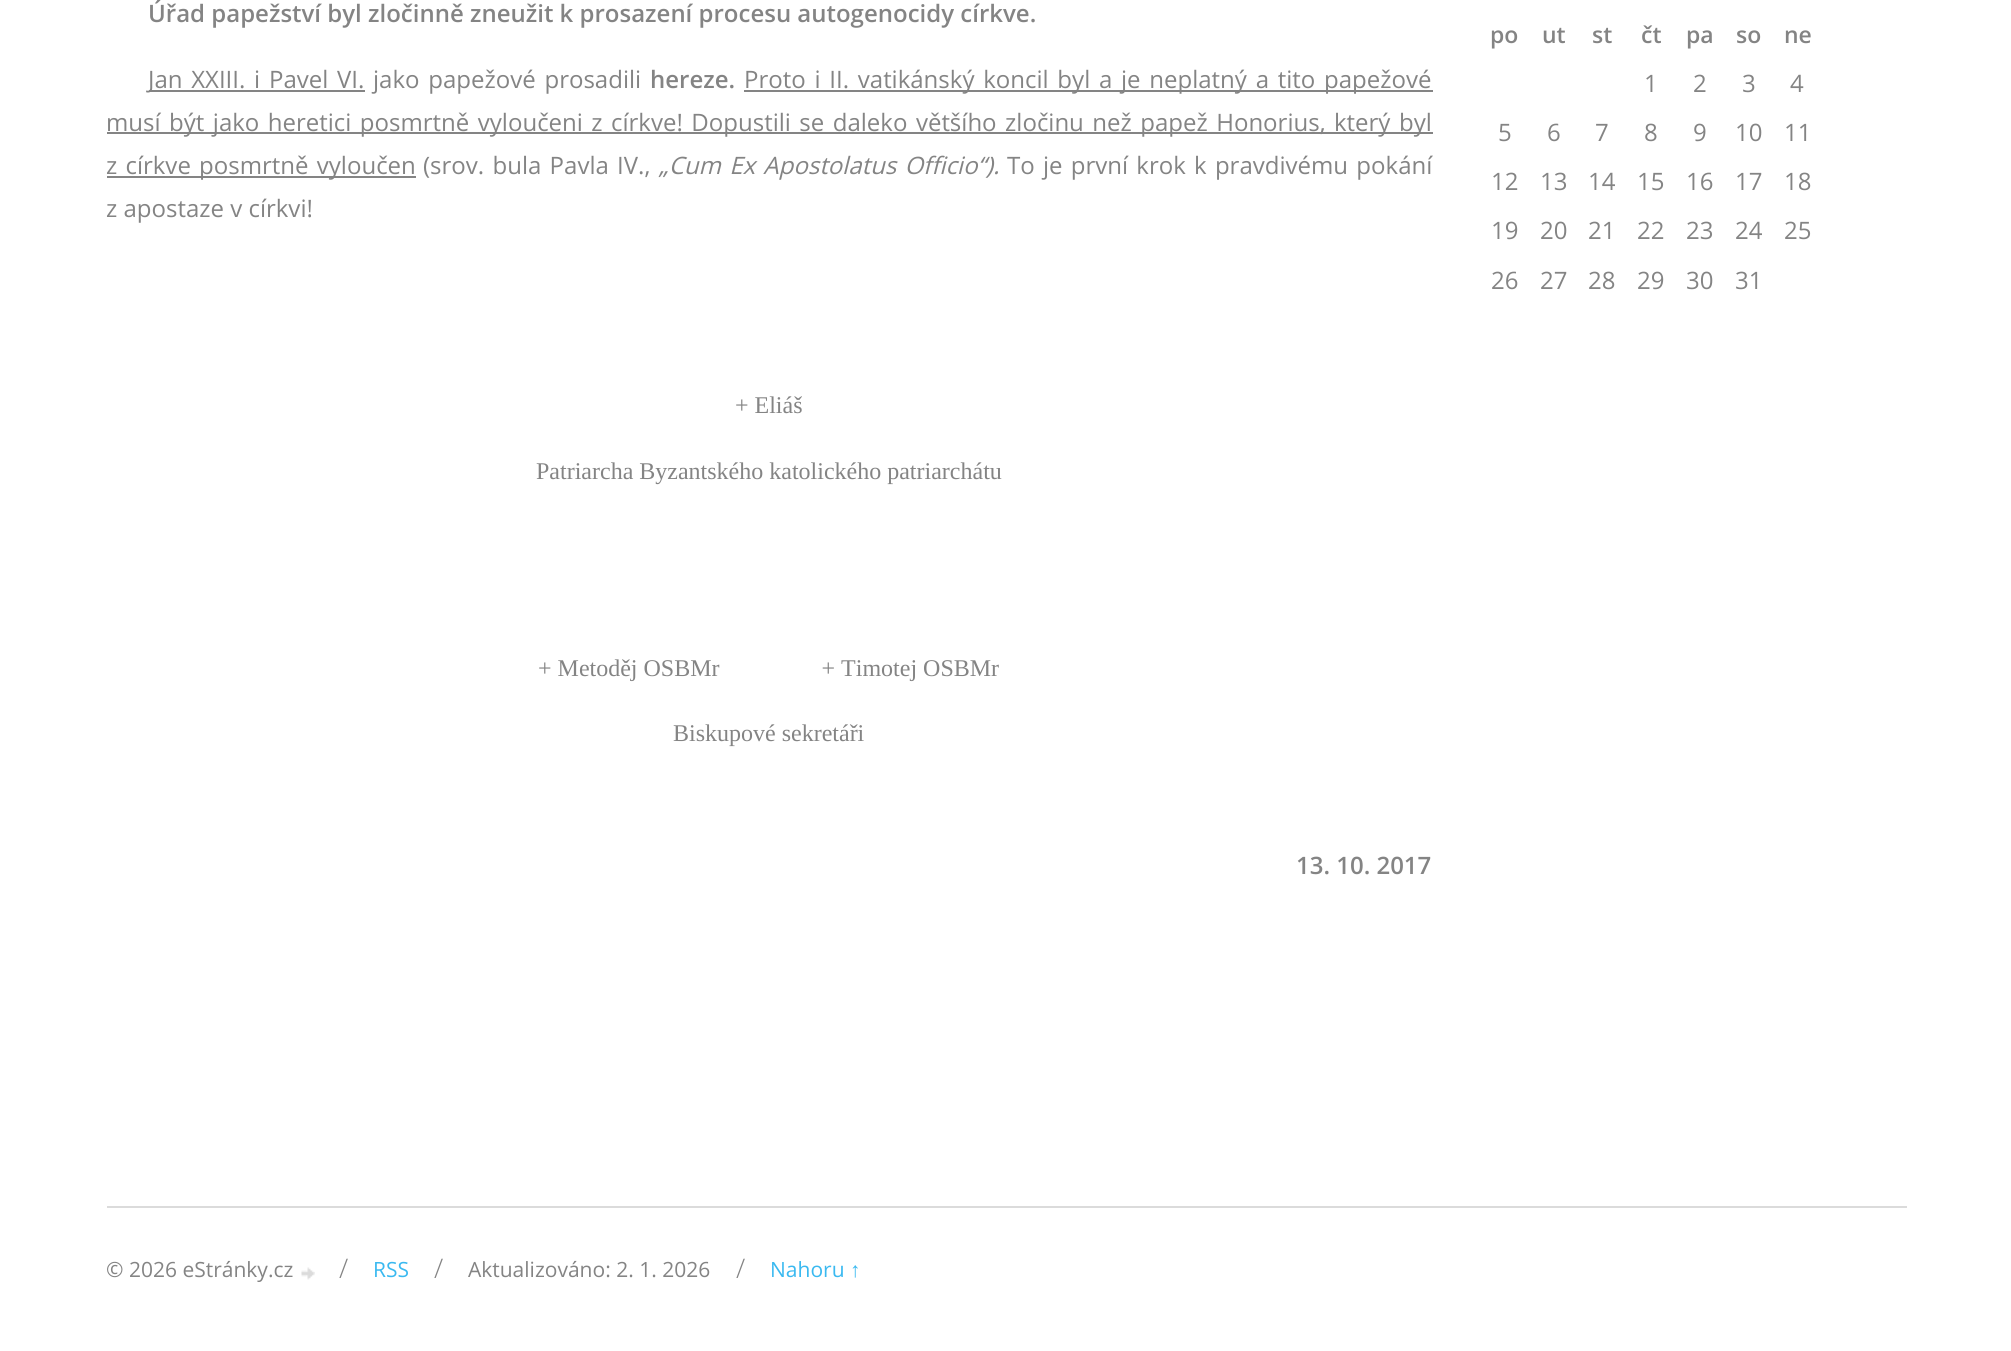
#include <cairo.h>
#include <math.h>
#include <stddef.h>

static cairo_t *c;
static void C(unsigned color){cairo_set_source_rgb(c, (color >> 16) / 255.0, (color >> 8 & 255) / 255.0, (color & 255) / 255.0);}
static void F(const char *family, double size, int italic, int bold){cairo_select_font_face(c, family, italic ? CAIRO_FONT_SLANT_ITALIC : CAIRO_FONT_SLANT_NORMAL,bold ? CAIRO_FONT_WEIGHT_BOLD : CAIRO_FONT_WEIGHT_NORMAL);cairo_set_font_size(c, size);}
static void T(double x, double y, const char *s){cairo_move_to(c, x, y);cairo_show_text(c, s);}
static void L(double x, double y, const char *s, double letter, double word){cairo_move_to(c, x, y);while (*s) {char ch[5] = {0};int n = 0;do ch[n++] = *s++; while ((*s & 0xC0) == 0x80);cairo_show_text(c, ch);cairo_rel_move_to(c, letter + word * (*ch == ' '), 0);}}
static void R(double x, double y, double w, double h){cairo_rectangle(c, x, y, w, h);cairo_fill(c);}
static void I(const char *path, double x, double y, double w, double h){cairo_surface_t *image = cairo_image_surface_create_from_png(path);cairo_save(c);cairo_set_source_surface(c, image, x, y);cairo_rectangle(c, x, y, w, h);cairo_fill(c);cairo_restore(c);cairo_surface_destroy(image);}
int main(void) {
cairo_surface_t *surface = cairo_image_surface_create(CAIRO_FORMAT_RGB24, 2011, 1351);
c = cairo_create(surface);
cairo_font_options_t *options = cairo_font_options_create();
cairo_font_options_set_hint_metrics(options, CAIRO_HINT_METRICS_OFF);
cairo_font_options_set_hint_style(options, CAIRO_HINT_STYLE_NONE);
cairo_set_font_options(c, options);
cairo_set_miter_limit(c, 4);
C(0xffffff);
cairo_paint(c);
F("Open Sans SemiBold",24,0,0);
C(0x848484);
T(148,22,"Úřad papežství byl zločinně zneužit k prosazení procesu autogenocidy církve.");
R(149,90,216,2);
F("Open Sans",24,0,0);
L(148,88,"Jan XXIII. i Pavel VI.",0,2.5);
L(373,88,"jako papežové prosadili",0,2.5);
F("Open Sans SemiBold",24,0,0);
T(650,88,"hereze.");
R(744,90,689,2);
F("Open Sans",24,0,0);
L(744,88,"Proto i II. vatikánský koncil byl a je neplatný a tito papežové",0,2.5);
R(107,132,1326,2);
L(106,131,"musí být jako heretici posmrtně vyloučeni z církve! Dopustili se daleko většího zločinu než papež Honorius, který byl",0,2.25);
R(107,176,309,2);
L(106,174,"z církve posmrtně vyloučen",0,2);
L(423,174,"(srov. bula Pavla IV.,",0,2);
F("Open Sans",24,1,0);
L(659,174,"„Cum Ex Apostolatus Officio“).",0,2);
F("Open Sans",24,0,0);
L(1007,174,"To je první krok k pravdivému pokání",0,2);
T(106,217,"z apostaze v církvi!");
F("Liberation Serif",24,0,0);
T(735,413,"+ Eliáš");
T(536,479,"Patriarcha Byzantského katolického patriarchátu");
T(538,676,"+ Metoděj OSBMr                 + Timotej OSBMr");
T(673,741,"Biskupové sekretáři");
F("Open Sans SemiBold",24,0,0);
T(1296,874,"13. 10. 2017");
F("Open Sans SemiBold",23,0,0);
T(1490,43,"po");
T(1542,43,"ut");
T(1592,43,"st");
T(1641,43,"čt");
T(1686,43,"pa");
T(1736,43,"so");
T(1784,43,"ne");
F("Open Sans",24,0,0);
T(1644,92,"1");
T(1693,92,"2");
T(1742,92,"3");
T(1790,92,"4");
T(1498,141,"5");
T(1547,141,"6");
T(1595,141,"7");
T(1644,141,"8");
T(1693,141,"9");
T(1735,141,"10");
T(1784,141,"11");
T(1491,190,"12");
T(1540,190,"13");
T(1588,190,"14");
T(1637,190,"15");
T(1686,190,"16");
T(1735,190,"17");
T(1784,190,"18");
T(1491,239,"19");
T(1540,239,"20");
T(1588,239,"21");
T(1637,239,"22");
T(1686,239,"23");
T(1735,239,"24");
T(1784,239,"25");
T(1491,289,"26");
T(1540,289,"27");
T(1588,289,"28");
T(1637,289,"29");
T(1686,289,"30");
T(1735,289,"31");
C(0xdbdbdb);
R(107,1206,1800,2);
F("Open Sans",21,0,0);
C(0x848484);
T(106,1277,"© 2026 eStránky.cz");
I("1.png",301,1267,14,13);
F("Open Sans Light",27,0,0);
T(339,1278,"/");
F("Open Sans",21,0,0);
C(0x3ab9f0);
T(373,1277,"RSS");
F("Open Sans Light",27,0,0);
C(0x848484);
T(434,1278,"/");
F("Open Sans",21,0,0);
T(468,1277,"Aktualizováno: 2. 1. 2026");
F("Open Sans Light",27,0,0);
T(736,1278,"/");
F("Open Sans",21,0,0);
C(0x3ab9f0);
T(770,1277,"Nahoru");
F("Liberation Sans",21,0,0);
T(850,1277,"↑");
cairo_surface_write_to_png(surface, "o.png");
cairo_font_options_destroy(options);
cairo_destroy(c);
cairo_surface_destroy(surface);
return 0;
}
